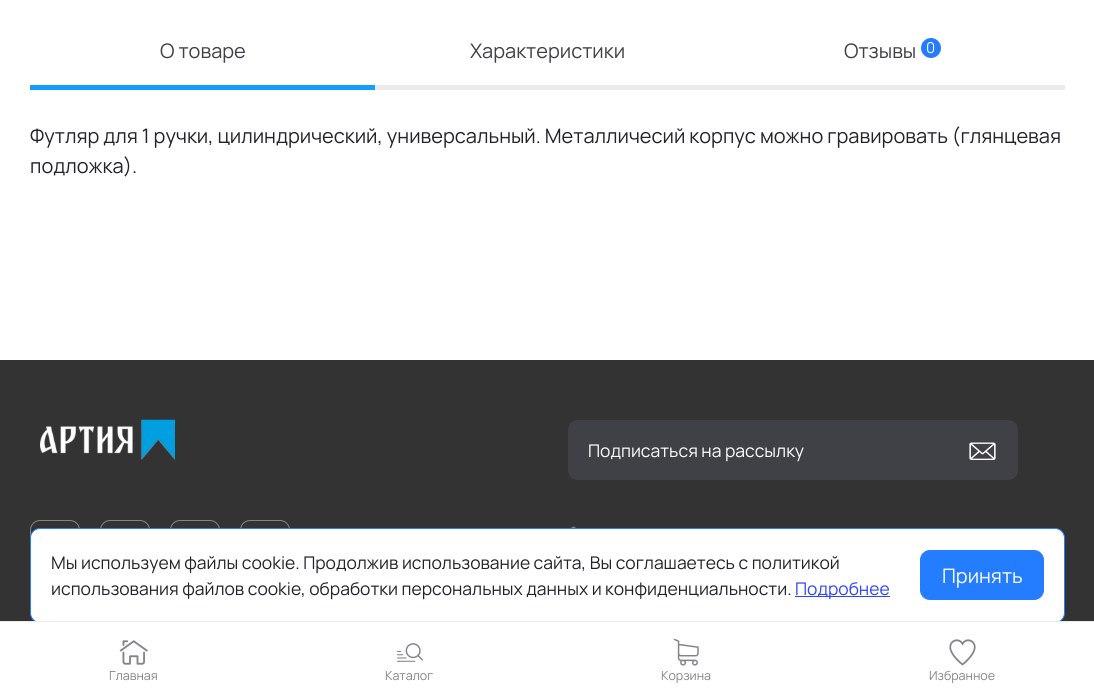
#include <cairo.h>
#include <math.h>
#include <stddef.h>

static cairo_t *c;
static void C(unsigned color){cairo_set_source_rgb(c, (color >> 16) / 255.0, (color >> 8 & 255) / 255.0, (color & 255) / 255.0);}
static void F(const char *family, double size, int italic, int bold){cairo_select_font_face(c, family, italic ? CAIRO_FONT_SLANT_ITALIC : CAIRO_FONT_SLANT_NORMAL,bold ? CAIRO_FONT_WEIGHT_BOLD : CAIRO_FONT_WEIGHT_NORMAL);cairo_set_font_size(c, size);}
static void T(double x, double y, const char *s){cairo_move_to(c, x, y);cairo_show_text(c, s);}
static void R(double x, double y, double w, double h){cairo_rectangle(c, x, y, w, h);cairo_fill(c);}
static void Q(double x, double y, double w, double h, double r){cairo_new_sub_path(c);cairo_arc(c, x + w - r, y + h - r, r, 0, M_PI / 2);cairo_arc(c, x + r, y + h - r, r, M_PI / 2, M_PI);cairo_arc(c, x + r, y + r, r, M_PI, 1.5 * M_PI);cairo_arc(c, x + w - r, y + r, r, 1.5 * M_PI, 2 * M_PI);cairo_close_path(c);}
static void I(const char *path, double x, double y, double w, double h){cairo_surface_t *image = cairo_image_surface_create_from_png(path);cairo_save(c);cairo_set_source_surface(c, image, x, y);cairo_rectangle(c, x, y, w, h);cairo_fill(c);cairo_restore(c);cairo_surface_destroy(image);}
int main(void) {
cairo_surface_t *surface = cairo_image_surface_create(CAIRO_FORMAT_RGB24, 1094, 699);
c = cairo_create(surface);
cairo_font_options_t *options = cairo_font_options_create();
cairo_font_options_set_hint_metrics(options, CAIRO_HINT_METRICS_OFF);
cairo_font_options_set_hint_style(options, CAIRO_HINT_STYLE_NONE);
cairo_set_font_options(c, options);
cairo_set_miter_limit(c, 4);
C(0xffffff);
cairo_paint(c);
F("Manrope",20,0,0);
C(0x404147);
T(160,58,"О товаре");
C(0x149cff);
R(30,85,345,5);
C(0x404147);
T(470,58,"Характеристики");
C(0xeaebee);
R(375,85,690,5);
C(0x404147);
T(844,58,"Отзывы");
C(0x247cff);
cairo_new_path(c);
cairo_arc(c,931,48,10,0,2 * M_PI);
cairo_fill(c);
F("Manrope",15,0,0);
C(0xffffff);
T(926,53,"0");
F("Manrope",20,0,0);
C(0x212529);
T(30,143,"Футляр для 1 ручки, цилиндрический, универсальный. Металличесий корпус можно гравировать (глянцевая");
T(30,173,"подложка).");
C(0x333333);
R(0,360,1094,261);
I("1.png",40,419,135,41);
Q(30.5,520.5,49,49,9.5);
C(0x84858a);
cairo_set_line_width(c,1);
cairo_stroke(c);
Q(100.5,520.5,49,49,9.5);
cairo_stroke(c);
Q(170.5,520.5,49,49,9.5);
cairo_stroke(c);
Q(240.5,520.5,49,49,9.5);
cairo_stroke(c);
C(0x404147);
Q(568,420,450,60,10);
cairo_fill(c);
F("Manrope",17.5,0,0);
C(0xffffff);
T(588,457,"Подписаться на рассылку");
I("2.png",969,442,27,18);
I("3.png",571,526,5,2);
Q(30.5,528.5,1034,94,9.5);
cairo_fill_preserve(c);
C(0x247cff);
cairo_stroke(c);
C(0x212529);
T(51,569,"Мы используем файлы cookie. Продолжив использование сайта, Вы соглашаетесь с политикой");
T(51,595,"использования файлов cookie, обработки персональных данных и конфиденциальности.");
C(0x2f44ff);
R(795,596,95,1);
T(795,595,"Подробнее");
C(0x247cff);
Q(920.5,550.5,123,49,9.5);
cairo_fill_preserve(c);
cairo_stroke(c);
F("Manrope",20,0,0);
C(0xffffff);
T(942,583,"Принять");
R(35,622,1025,1);
C(0xeaebee);
R(0,621,1094,1);
I("4.png",119,640,29,25);
F("Manrope",12.5,0,0);
C(0x84858a);
T(109,680,"Главная");
I("5.png",397,643,26,19);
T(385,680,"Каталог");
I("6.png",673,638,26,28);
T(661,680,"Корзина");
I("7.png",949,639,27,27);
T(929,680,"Избранное");
cairo_surface_write_to_png(surface, "o.png");
cairo_font_options_destroy(options);
cairo_destroy(c);
cairo_surface_destroy(surface);
return 0;
}
